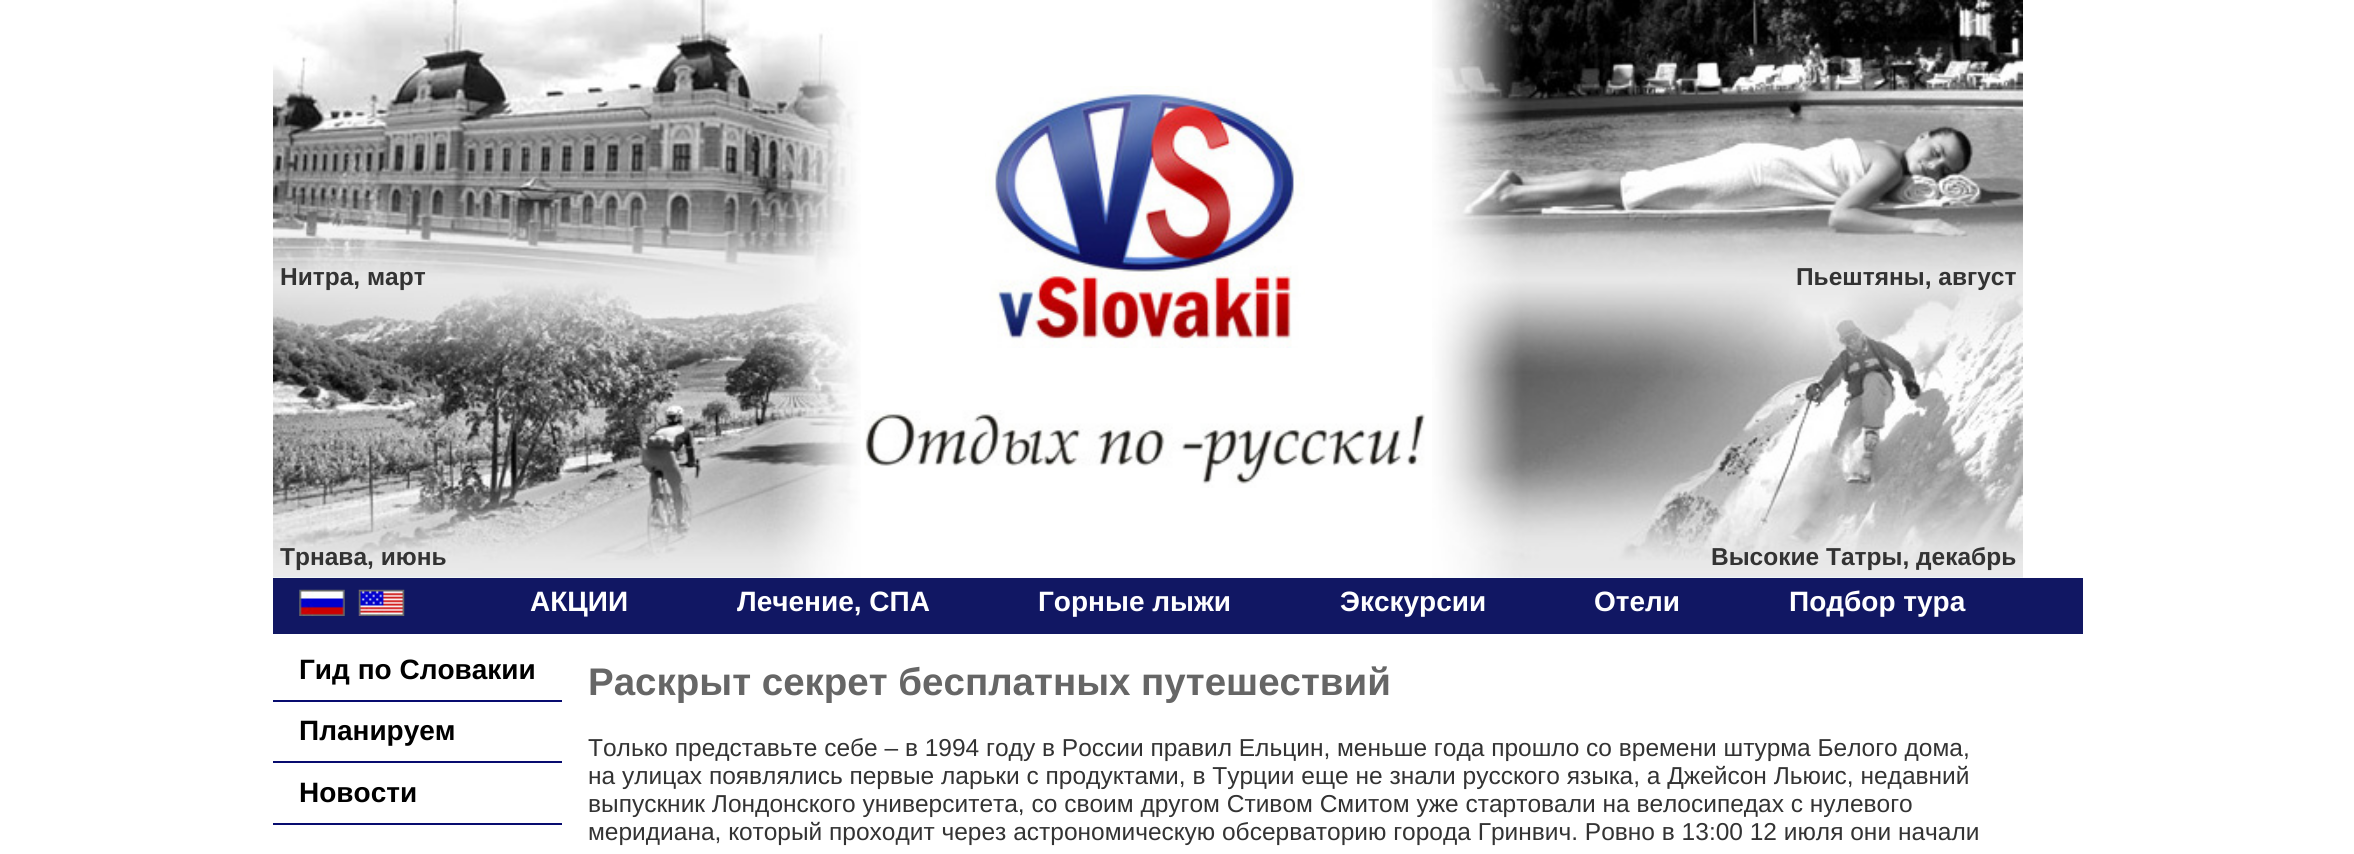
#include <cairo.h>
#include <math.h>
#include <stddef.h>

static cairo_t *c;
static void C(unsigned color){cairo_set_source_rgb(c, (color >> 16) / 255.0, (color >> 8 & 255) / 255.0, (color & 255) / 255.0);}
static void F(const char *family, double size, int italic, int bold){cairo_select_font_face(c, family, italic ? CAIRO_FONT_SLANT_ITALIC : CAIRO_FONT_SLANT_NORMAL,bold ? CAIRO_FONT_WEIGHT_BOLD : CAIRO_FONT_WEIGHT_NORMAL);cairo_set_font_size(c, size);}
static void T(double x, double y, const char *s){cairo_move_to(c, x, y);cairo_show_text(c, s);}
static void R(double x, double y, double w, double h){cairo_rectangle(c, x, y, w, h);cairo_fill(c);}
static void I(const char *path, double x, double y, double w, double h){cairo_surface_t *image = cairo_image_surface_create_from_png(path);cairo_save(c);cairo_set_source_surface(c, image, x, y);cairo_rectangle(c, x, y, w, h);cairo_fill(c);cairo_restore(c);cairo_surface_destroy(image);}
int main(void) {
cairo_surface_t *surface = cairo_image_surface_create(CAIRO_FORMAT_RGB24, 2354, 854);
c = cairo_create(surface);
cairo_font_options_t *options = cairo_font_options_create();
cairo_font_options_set_hint_metrics(options, CAIRO_HINT_METRICS_OFF);
cairo_font_options_set_hint_style(options, CAIRO_HINT_STYLE_NONE);
cairo_set_font_options(c, options);
cairo_set_miter_limit(c, 4);
C(0xffffff);
cairo_paint(c);
I("1.png",273,0,588,578);
F("Liberation Sans",24.5,0,1);
C(0x333333);
T(280,285,"Нитра, март");
T(280,565,"Трнава, июнь");
I("2.png",985,86,320,262);
I("3.png",864,410,561,78);
I("4.png",1432,0,591,578);
T(1796,285,"Пьештяны, август");
T(1711,565,"Высокие Татры, декабрь");
C(0x111763);
R(273,578,1810,56);
I("5.png",299,589,46,27);
I("6.png",358,589,47,27);
F("Liberation Sans",28,0,1);
C(0xffffff);
T(530,611,"АКЦИИ");
T(737,611,"Лечение, СПА");
T(1038,611,"Горные лыжи");
T(1340,611,"Экскурсии");
T(1594,611,"Отели");
T(1789,611,"Подбор тура");
C(0x080c6f);
R(273,700,289,2);
C(0x000000);
T(299,679,"Гид по Словакии");
C(0x080c6f);
R(273,761,289,2);
C(0x000000);
T(299,740,"Планируем");
C(0x080c6f);
R(273,823,289,2);
C(0x000000);
T(299,802,"Новости");
F("Liberation Sans",38.5,0,1);
C(0x666666);
T(588,695,"Раскрыт секрет бесплатных путешествий");
F("Liberation Sans",24.5,0,0);
C(0x333333);
T(588,756,"Только представьте себе – в 1994 году в России правил Ельцин, меньше года прошло со времени штурма Белого дома,");
T(588,784,"на улицах появлялись первые ларьки с продуктами, в Турции еще не знали русского языка, а Джейсон Льюис, недавний");
T(588,812,"выпускник Лондонского университета, со своим другом Стивом Смитом уже стартовали на велосипедах с нулевого");
T(588,840,"меридиана, который проходит через астрономическую обсерваторию города Гринвич. Ровно в 13:00 12 июля они начали");
cairo_surface_write_to_png(surface, "o.png");
cairo_font_options_destroy(options);
cairo_destroy(c);
cairo_surface_destroy(surface);
return 0;
}
